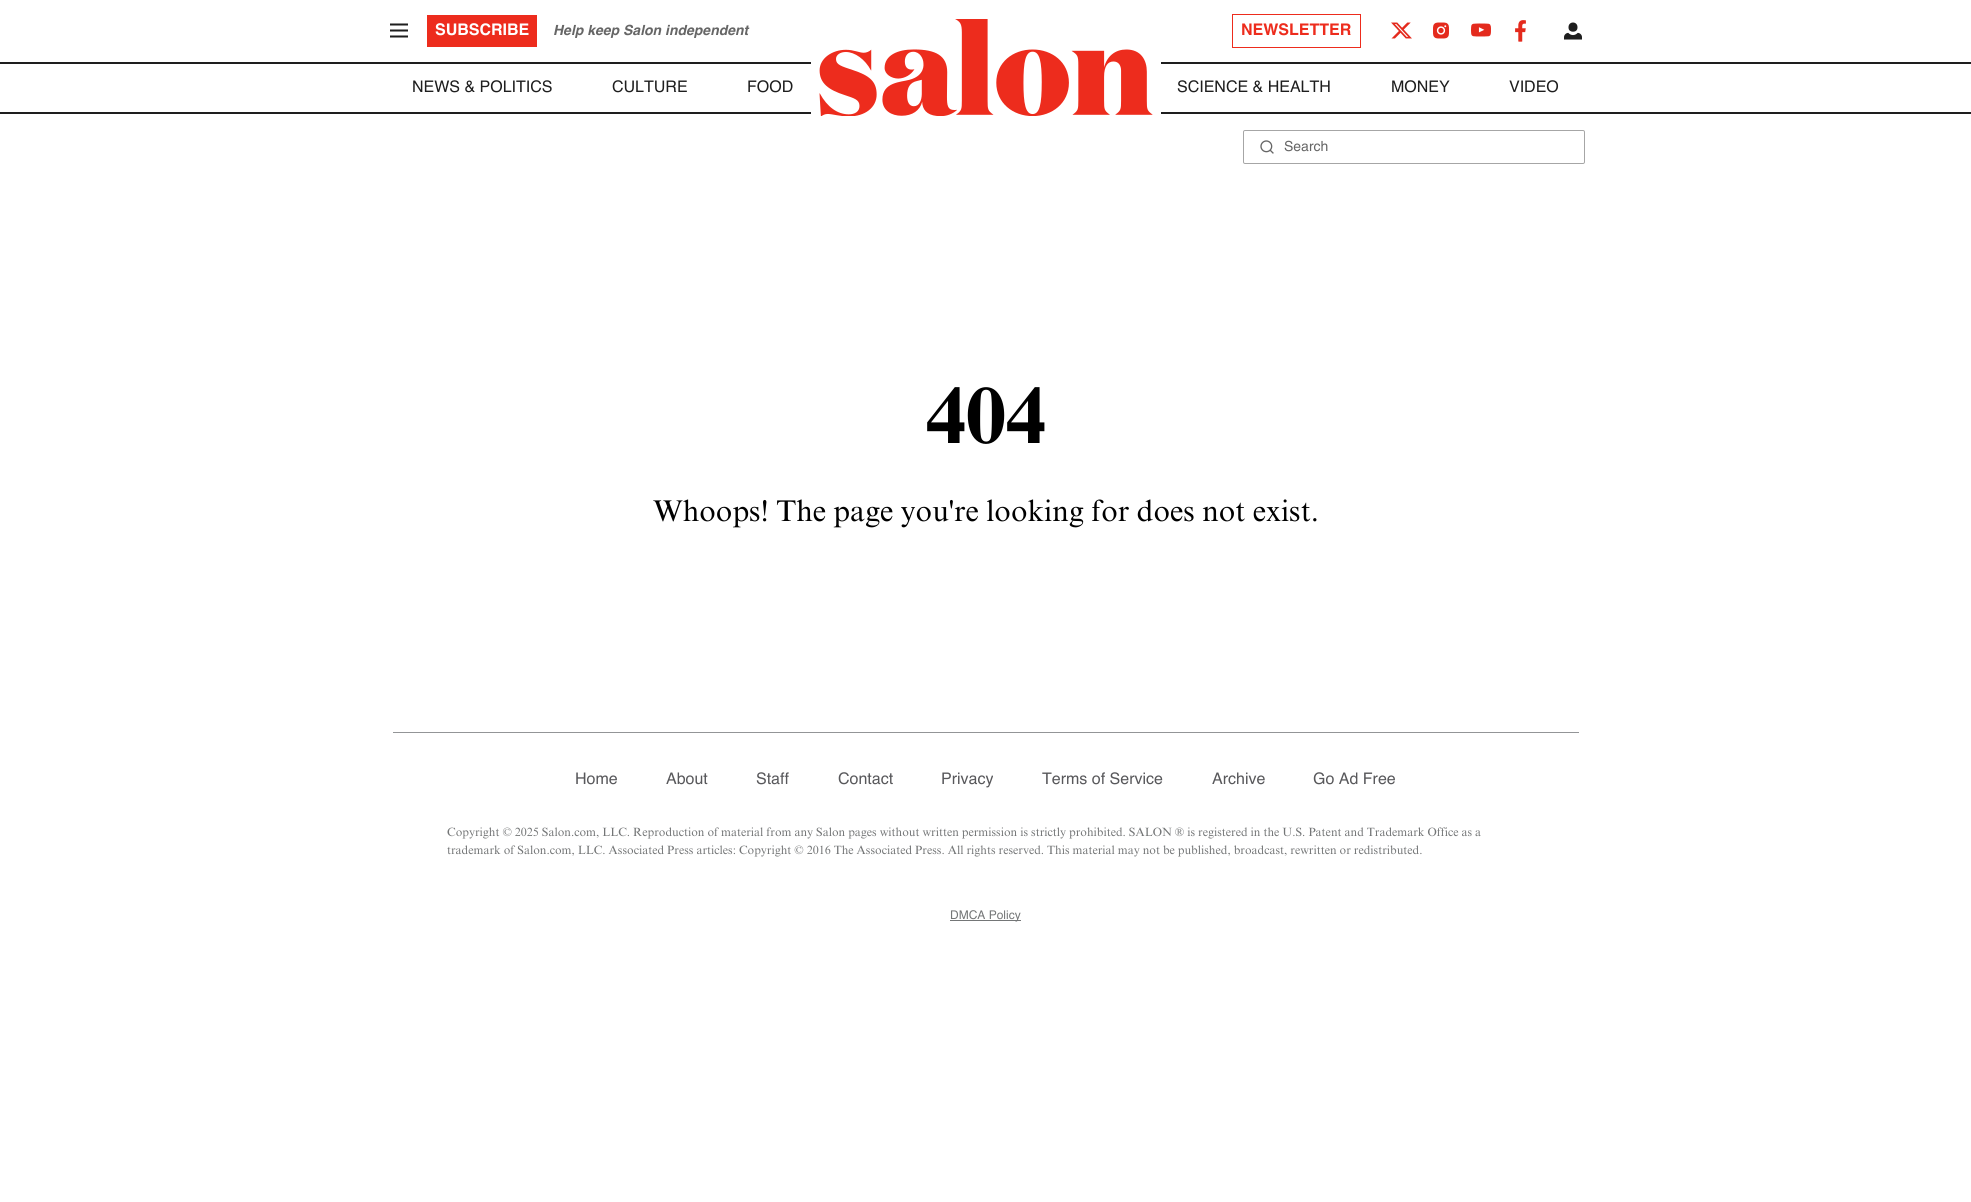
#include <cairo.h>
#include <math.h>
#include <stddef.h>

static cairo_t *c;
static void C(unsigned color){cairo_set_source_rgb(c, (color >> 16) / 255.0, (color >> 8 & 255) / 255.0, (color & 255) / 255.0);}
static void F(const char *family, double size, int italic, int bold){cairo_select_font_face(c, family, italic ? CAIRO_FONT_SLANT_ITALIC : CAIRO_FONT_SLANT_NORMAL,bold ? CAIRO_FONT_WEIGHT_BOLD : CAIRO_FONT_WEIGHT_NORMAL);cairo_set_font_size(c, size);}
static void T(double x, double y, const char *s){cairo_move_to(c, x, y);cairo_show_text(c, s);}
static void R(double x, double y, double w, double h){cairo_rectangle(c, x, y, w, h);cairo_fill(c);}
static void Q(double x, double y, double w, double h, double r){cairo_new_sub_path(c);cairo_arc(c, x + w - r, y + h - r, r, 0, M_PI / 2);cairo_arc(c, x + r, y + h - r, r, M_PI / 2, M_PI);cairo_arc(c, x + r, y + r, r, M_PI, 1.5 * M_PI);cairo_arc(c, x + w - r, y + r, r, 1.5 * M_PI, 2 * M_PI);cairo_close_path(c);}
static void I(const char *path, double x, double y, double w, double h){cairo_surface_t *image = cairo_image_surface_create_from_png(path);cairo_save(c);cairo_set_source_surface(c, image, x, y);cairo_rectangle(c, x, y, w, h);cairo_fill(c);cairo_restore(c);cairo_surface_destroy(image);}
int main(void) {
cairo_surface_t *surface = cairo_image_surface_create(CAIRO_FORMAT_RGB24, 1971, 1202);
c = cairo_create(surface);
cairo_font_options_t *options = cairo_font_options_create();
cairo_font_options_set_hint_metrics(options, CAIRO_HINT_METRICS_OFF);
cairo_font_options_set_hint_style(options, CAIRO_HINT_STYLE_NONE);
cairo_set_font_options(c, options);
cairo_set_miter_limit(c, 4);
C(0xffffff);
cairo_paint(c);
I("1.png",390,23,18,15);
C(0xed2c1d);
R(427,15,110,32);
F("Helvetica",16,0,1);
C(0xffffff);
T(435,35,"SUBSCRIBE");
F("Helvetica",14,1,1);
C(0x666666);
T(553,35,"Help keep Salon independent");
cairo_rectangle(c,1232.5,14.5,128,33);
C(0xed2c1d);
cairo_set_line_width(c,1);
cairo_stroke(c);
F("Helvetica",16,0,1);
T(1241,35,"NEWSLETTER");
I("2.png",1391,22,21,17);
I("3.png",1433,22,16,17);
I("4.png",1471,23,20,14);
I("5.png",1515,20,11,22);
I("6.png",1564,22,18,18);
C(0x1e1e1e);
R(0,62,1971,2);
R(0,112,1971,2);
F("Helvetica",16,0,0);
T(412,92,"NEWS & POLITICS");
T(612,92,"CULTURE");
T(747,92,"FOOD");
C(0xffffff);
R(811,62,350,52);
I("7.png",819,19,334,97);
C(0x1e1e1e);
T(1177,92,"SCIENCE & HEALTH");
T(1391,92,"MONEY");
T(1509,92,"VIDEO");
Q(1243.5,130.5,341,33,1.5);
C(0xa6a6a6);
cairo_stroke(c);
I("8.png",1260,140,14,14);
F("Helvetica",14,0,0);
C(0x666666);
T(1284,151,"Search");
F("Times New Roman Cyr",80,0,1);
C(0x000000);
T(926,443,"404");
F("Times New Roman Cyr",30,0,0);
T(653,521,"Whoops! The page you're looking for does not exist.");
C(0x939597);
R(393,732,1186,1);
F("Helvetica",16,0,0);
C(0x58585b);
T(575,784,"Home");
T(666,784,"About");
T(756,784,"Staff");
T(838,784,"Contact");
T(941,784,"Privacy");
T(1042,784,"Terms of Service");
T(1212,784,"Archive");
T(1313,784,"Go Ad Free");
F("Times New Roman Cyr",12,0,0);
C(0x747677);
T(447,836,"Copyright © 2025 Salon.com, LLC. Reproduction of material from any Salon pages without written permission is strictly prohibited. SALON ® is registered in the U.S. Patent and Trademark Office as a");
T(447,854,"trademark of Salon.com, LLC. Associated Press articles: Copyright © 2016 The Associated Press. All rights reserved. This material may not be published, broadcast, rewritten or redistributed.");
R(950,920,71,1);
F("Helvetica",12,0,0);
T(950,919,"DMCA Policy");
cairo_surface_write_to_png(surface, "o.png");
cairo_font_options_destroy(options);
cairo_destroy(c);
cairo_surface_destroy(surface);
return 0;
}
